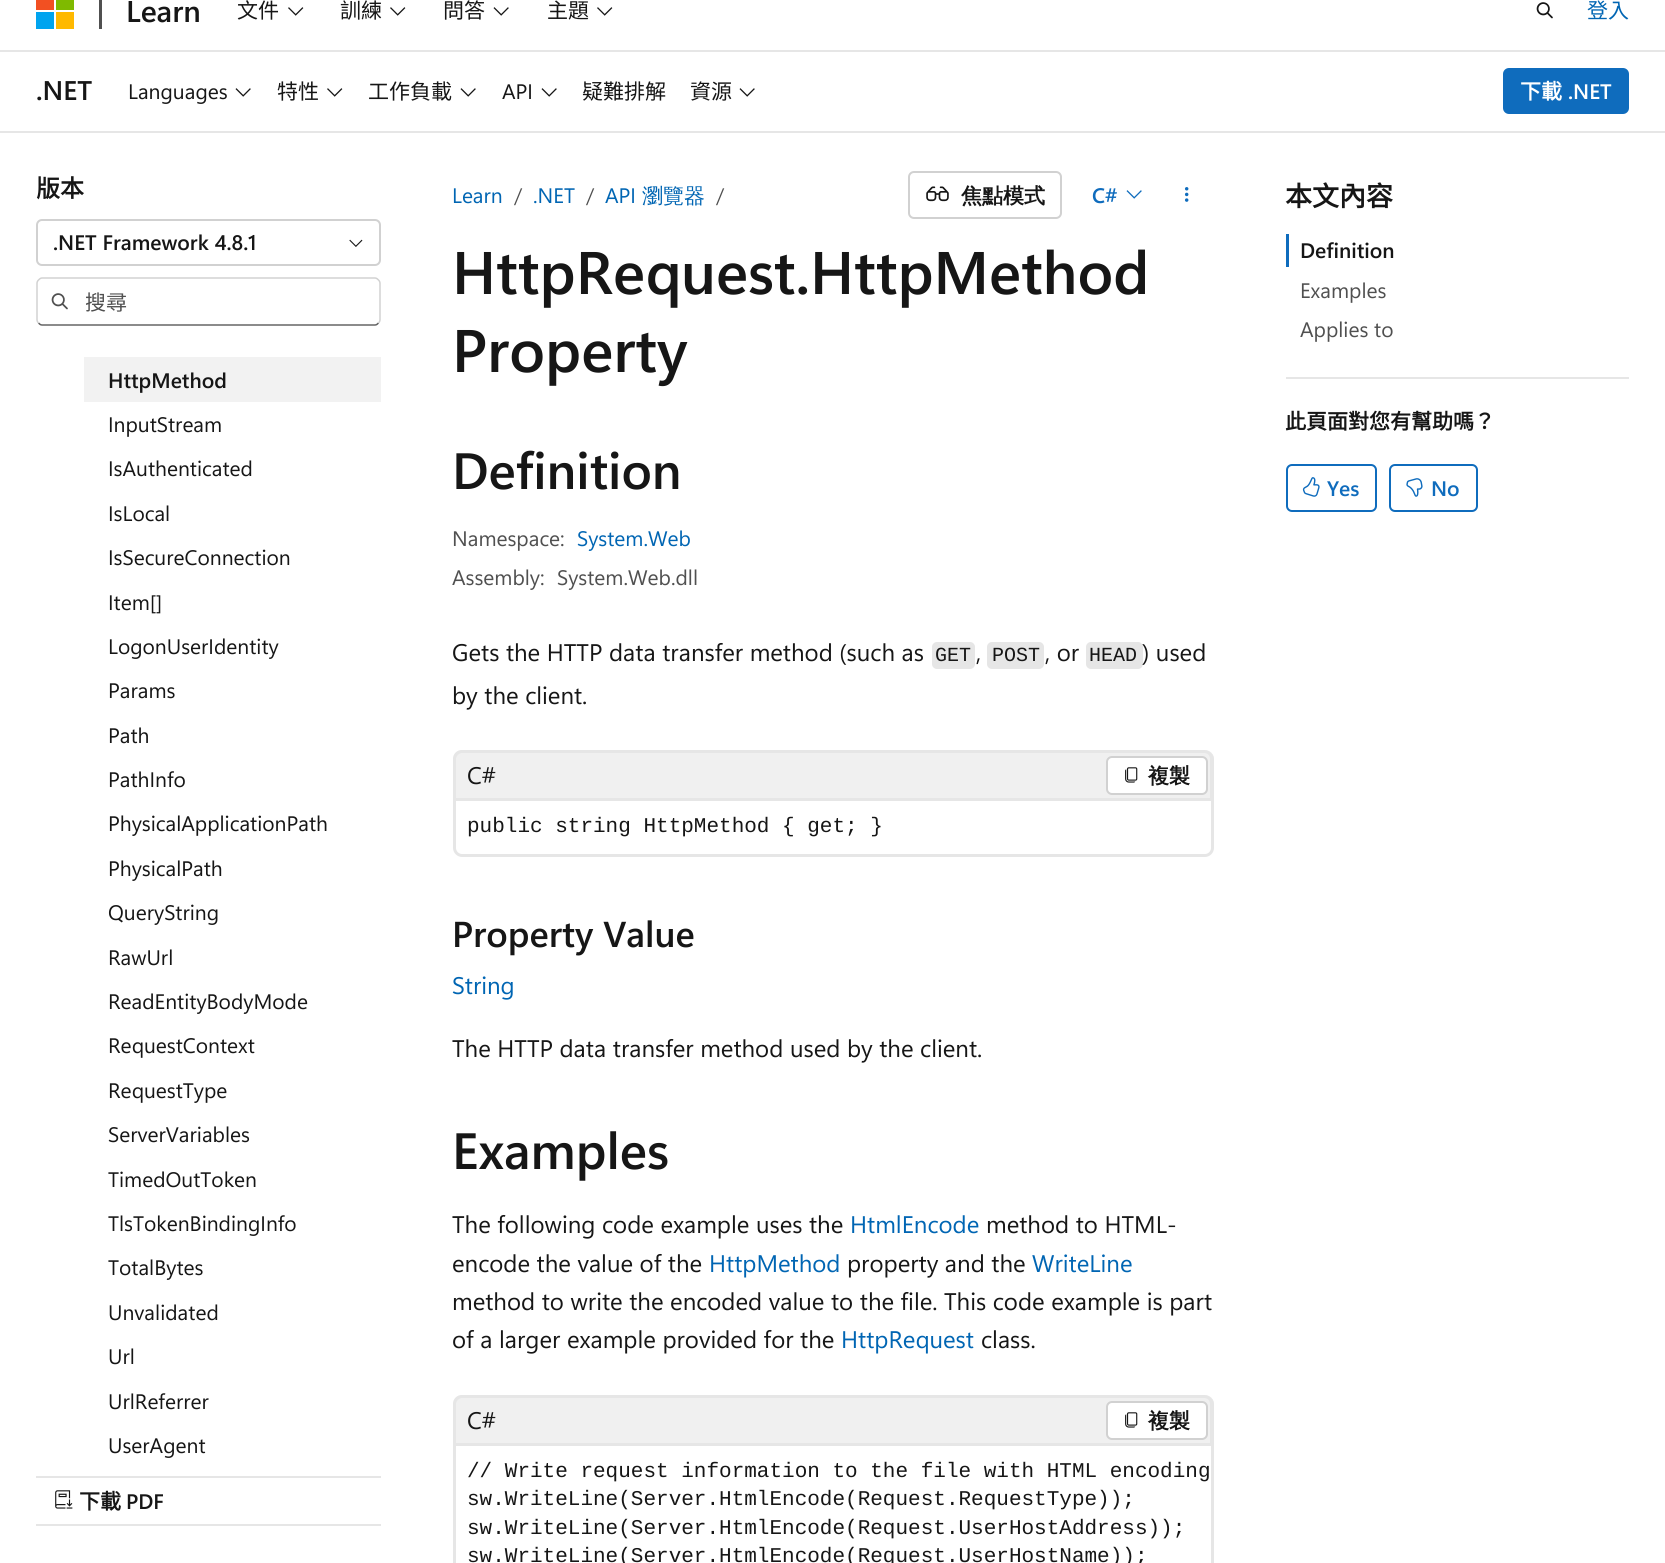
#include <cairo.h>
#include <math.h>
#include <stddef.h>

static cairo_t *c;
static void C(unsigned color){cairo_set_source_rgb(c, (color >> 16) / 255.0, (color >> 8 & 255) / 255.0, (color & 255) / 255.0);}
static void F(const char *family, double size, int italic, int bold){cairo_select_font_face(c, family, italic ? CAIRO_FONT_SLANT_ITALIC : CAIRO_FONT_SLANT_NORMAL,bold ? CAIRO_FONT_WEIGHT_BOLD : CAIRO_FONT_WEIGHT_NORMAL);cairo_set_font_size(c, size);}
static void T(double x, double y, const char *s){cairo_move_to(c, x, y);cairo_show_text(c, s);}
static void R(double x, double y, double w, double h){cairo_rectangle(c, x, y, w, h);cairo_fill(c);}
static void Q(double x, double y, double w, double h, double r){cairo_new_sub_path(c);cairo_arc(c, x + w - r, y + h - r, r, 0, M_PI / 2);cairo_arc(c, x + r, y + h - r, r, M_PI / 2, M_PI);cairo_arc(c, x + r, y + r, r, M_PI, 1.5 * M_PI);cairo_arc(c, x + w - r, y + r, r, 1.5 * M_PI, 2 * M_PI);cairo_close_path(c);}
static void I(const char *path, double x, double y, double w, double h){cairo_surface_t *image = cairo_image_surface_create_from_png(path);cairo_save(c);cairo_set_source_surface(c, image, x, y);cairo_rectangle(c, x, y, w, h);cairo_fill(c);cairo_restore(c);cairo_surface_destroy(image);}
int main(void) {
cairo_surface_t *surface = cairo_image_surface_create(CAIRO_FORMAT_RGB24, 1665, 1563);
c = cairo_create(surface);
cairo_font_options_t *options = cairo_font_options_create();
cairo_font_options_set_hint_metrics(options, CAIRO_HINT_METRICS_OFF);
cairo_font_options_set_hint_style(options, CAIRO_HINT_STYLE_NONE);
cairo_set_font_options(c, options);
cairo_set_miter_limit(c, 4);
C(0xffffff);
cairo_paint(c);
C(0xe6e6e6);
R(0,50,1665,2);
C(0xf25022);
R(36,0,18,10);
C(0x7fba00);
R(56,0,18,10);
C(0x00a4ef);
R(36,12,18,17);
C(0xffb900);
R(56,12,18,17);
C(0x505050);
R(99,0,3,29);
F("Segoe UI SemiBold",30,0,0);
C(0x161616);
T(126,22,"Learn");
F("Noto Sans CJK TC",21,0,0);
T(237,18,"文件");
I("1.png",288,7,16,9);
T(340,18,"訓練");
I("1.png",390,7,16,9);
T(443,18,"問答");
I("2.png",493,7,16,9);
T(547,18,"主題");
I("1.png",597,7,16,9);
I("3.png",1536,2,17,17);
C(0x0065b3);
T(1587,18,"登入");
C(0xe6e6e6);
R(0,131,1665,2);
F("Segoe UI SemiBold",27,0,0);
C(0x161616);
T(36,100,".NET");
F("Segoe UI",21,0,0);
T(128,99,"Languages");
I("2.png",235,88,16,9);
F("Noto Sans CJK TC",21,0,0);
T(277,99,"特性");
I("1.png",327,88,16,9);
T(368,99,"工作負載");
I("2.png",460,88,16,9);
F("Segoe UI",21,0,0);
T(502,99,"API");
I("2.png",541,88,16,9);
F("Noto Sans CJK TC",21,0,0);
T(582,99,"疑難排解");
T(690,99,"資源");
I("2.png",739,88,16,9);
C(0x0f6cbd);
Q(1504,69,124,44,5);
cairo_fill_preserve(c);
cairo_stroke(c);
F("Noto Sans CJK TC",21,0,1);
C(0xffffff);
T(1520,99,"下載");
F("Segoe UI SemiBold",21,0,0);
T(1568,99,".NET");
F("Noto Sans CJK TC",24,0,1);
C(0x161616);
T(36,197,"版本");
Q(37,220,343,45,5);
C(0xd1d1d1);
cairo_stroke(c);
F("Segoe UI SemiBold",21,0,0);
C(0x161616);
T(53,250,".NET Framework 4.8.1");
I("4.png",349,239,14,8);
cairo_new_path(c);
cairo_move_to(c,378.5,323);
cairo_curve_to(c,377.5,324,376.5,325,375,325);
cairo_line_to(c,42,325);
cairo_curve_to(c,40.5,325,39.5,324,38.5,323);
C(0x616161);
cairo_set_line_width(c,1.5);
cairo_stroke(c);
cairo_new_path(c);
cairo_move_to(c,38.5,323);
cairo_curve_to(c,37.5,322,37,321,37,319.5);
cairo_line_to(c,37,283.5);
cairo_curve_to(c,37,282,37.5,281,38.5,280);
cairo_curve_to(c,39.5,279,40.5,278,42,278);
cairo_line_to(c,375,278);
cairo_curve_to(c,376.5,278,377.5,279,378.5,280);
cairo_curve_to(c,379.5,281,380,282,380,283.5);
cairo_line_to(c,380,319.5);
cairo_curve_to(c,380,321,379.5,322,378.5,323);
C(0xd1d1d1);
cairo_stroke(c);
I("5.png",51,293,17,17);
cairo_save(c);
cairo_rectangle(c,86,285,255,30);
cairo_clip(c);
F("Noto Sans CJK TC",21,0,0);
C(0x505050);
T(85,310,"搜尋");
cairo_restore(c);
C(0xf2f2f2);
R(84,357,297,45);
C(0x161616);
T(108,388,"HttpMethod");
F("Segoe UI",21,0,0);
T(108,432,"InputStream");
T(108,476,"IsAuthenticated");
T(108,521,"IsLocal");
T(108,565,"IsSecureConnection");
T(108,610,"Item[]");
T(108,654,"LogonUserIdentity");
T(108,698,"Params");
T(108,743,"Path");
T(108,787,"PathInfo");
T(108,831,"PhysicalApplicationPath");
T(108,876,"PhysicalPath");
T(108,920,"QueryString");
T(108,965,"RawUrl");
T(108,1009,"ReadEntityBodyMode");
T(108,1053,"RequestContext");
T(108,1098,"RequestType");
T(108,1142,"ServerVariables");
T(108,1187,"TimedOutToken");
T(108,1231,"TlsTokenBindingInfo");
T(108,1275,"TotalBytes");
T(108,1320,"Unvalidated");
T(108,1364,"Url");
T(108,1409,"UrlReferrer");
T(108,1453,"UserAgent");
C(0xe6e6e6);
R(36,1476,345,2);
R(36,1524,345,2);
I("6.png",55,1490,18,19);
F("Noto Sans CJK TC",21,0,1);
C(0x161616);
T(79,1509,"下載");
F("Segoe UI SemiBold",21,0,0);
T(126,1509,"PDF");
F("Segoe UI",21,0,0);
C(0x0065b3);
T(452,203,"Learn");
C(0x505050);
T(514,203,"/");
C(0x0065b3);
T(533,203,".NET");
C(0x505050);
T(586,203,"/");
C(0x0065b3);
T(605,203,"API");
F("WenQuanYi Zen Hei Medium",21,0,0);
T(642,203,"瀏覽器");
F("Segoe UI",21,0,0);
C(0x505050);
T(716,203,"/");
Q(909,172,152,46,5);
C(0xd1d1d1);
cairo_set_line_width(c,2);
cairo_stroke(c);
I("7.png",926,186,23,16);
F("WenQuanYi Zen Hei",21,0,1);
C(0x161616);
T(961,203,"焦點模式");
F("Segoe UI SemiBold",21,0,0);
C(0x0f6cbd);
T(1092,203,"C#");
I("8.png",1126,190,16,9);
I("9.png",1184,187,5,15);
F("Segoe UI SemiBold",60,0,0);
C(0x161616);
T(452,294,"HttpRequest.HttpMethod");
T(452,372,"Property");
F("Segoe UI SemiBold",51,0,0);
T(452,489,"Definition");
F("Segoe UI",21,0,0);
C(0x505050);
T(452,546,"Namespace:");
C(0x0065b3);
T(577,546,"System.Web");
C(0x505050);
T(452,585,"Assembly:");
T(557,585,"System.Web.dll");
F("Segoe UI",24,0,0);
C(0x161616);
T(452,661,"Gets the HTTP data transfer method (such as");
C(0xe6e6e6);
Q(932,642,43,27,5);
cairo_fill(c);
F("Liberation Mono",20,0,0);
C(0x161616);
T(935,661,"GET");
F("Segoe UI",24,0,0);
T(976,661,",");
C(0xe6e6e6);
Q(987,642,57,27,5);
cairo_fill(c);
F("Liberation Mono",20,0,0);
C(0x161616);
T(992,661,"POST");
F("Segoe UI",24,0,0);
T(1045,661,", or");
C(0xe6e6e6);
Q(1086,642,57,27,5);
cairo_fill(c);
F("Liberation Mono",20,0,0);
C(0x161616);
T(1089,661,"HEAD");
F("Segoe UI",24,0,0);
T(1142,661,") used");
T(452,704,"by the client.");
C(0xf0f0f0);
cairo_new_path(c);
cairo_move_to(c,462,750);
cairo_line_to(c,1205,750);
cairo_curve_to(c,1210,750,1214,754,1214,759);
cairo_line_to(c,1214,798);
cairo_line_to(c,453,798);
cairo_line_to(c,453,759);
cairo_curve_to(c,453,754,457,750,462,750);
cairo_close_path(c);
cairo_fill(c);
C(0xe6e6e6);
cairo_set_fill_rule(c,CAIRO_FILL_RULE_EVEN_ODD);
cairo_new_path(c);
cairo_move_to(c,462,750);
cairo_line_to(c,1204,750);
cairo_curve_to(c,1209,750,1214,754,1214,759);
cairo_line_to(c,1214,798);
cairo_line_to(c,453,798);
cairo_line_to(c,453,759);
cairo_curve_to(c,453,754,457,750,462,750);
cairo_close_path(c);
cairo_move_to(c,462,753);
cairo_line_to(c,1204,753);
cairo_curve_to(c,1208,753,1210,756,1210,759);
cairo_line_to(c,1210,798);
cairo_line_to(c,456,798);
cairo_line_to(c,456,759);
cairo_curve_to(c,456,756,459,753,462,753);
cairo_close_path(c);
cairo_fill(c);
C(0x161616);
T(467,784,"C#");
C(0xffffff);
Q(1107,757,100,37,5);
cairo_fill_preserve(c);
C(0xd1d1d1);
cairo_stroke(c);
I("10.png",1125,767,13,16);
F("WenQuanYi Zen Hei",21,0,1);
C(0x161616);
T(1148,783,"複製");
cairo_new_path(c);
cairo_move_to(c,454.5,799.5);
cairo_line_to(c,1212.5,799.5);
cairo_line_to(c,1212.5,848);
cairo_curve_to(c,1212.5,852,1209,855.5,1205,855.5);
cairo_line_to(c,462,855.5);
cairo_curve_to(c,458,855.5,454.5,852,454.5,848);
cairo_close_path(c);
C(0xe6e6e6);
cairo_set_line_width(c,3);
cairo_stroke(c);
F("Liberation Mono",21,0,0);
C(0x161616);
T(467,832,"public string HttpMethod { get; }");
F("Segoe UI SemiBold",36,0,0);
T(452,947,"Property Value");
F("Segoe UI",24,0,0);
C(0x0065b3);
T(452,994,"String");
C(0x161616);
T(452,1057,"The HTTP data transfer method used by the client.");
F("Segoe UI SemiBold",51,0,0);
T(452,1169,"Examples");
F("Segoe UI",24,0,0);
T(452,1233,"The following code example uses the");
C(0x0065b3);
T(850,1233,"HtmlEncode");
C(0x161616);
T(986,1233,"method to HTML-");
T(452,1272,"encode the value of the");
C(0x0065b3);
T(709,1272,"HttpMethod");
C(0x161616);
T(847,1272,"property and the");
C(0x0065b3);
T(1032,1272,"WriteLine");
C(0x161616);
T(452,1310,"method to write the encoded value to the file. This code example is part");
T(452,1348,"of a larger example provided for the");
C(0x0065b3);
T(841,1348,"HttpRequest");
C(0x161616);
T(981,1348,"class.");
C(0xf0f0f0);
cairo_new_path(c);
cairo_move_to(c,462,1395);
cairo_line_to(c,1205,1395);
cairo_curve_to(c,1210,1395,1214,1399,1214,1404);
cairo_line_to(c,1214,1443);
cairo_line_to(c,453,1443);
cairo_line_to(c,453,1404);
cairo_curve_to(c,453,1399,457,1395,462,1395);
cairo_close_path(c);
cairo_fill(c);
C(0xe6e6e6);
cairo_new_path(c);
cairo_move_to(c,462,1395);
cairo_line_to(c,1204,1395);
cairo_curve_to(c,1209,1395,1214,1399,1214,1404);
cairo_line_to(c,1214,1443);
cairo_line_to(c,453,1443);
cairo_line_to(c,453,1404);
cairo_curve_to(c,453,1399,457,1395,462,1395);
cairo_close_path(c);
cairo_move_to(c,462,1398);
cairo_line_to(c,1204,1398);
cairo_curve_to(c,1208,1398,1210,1401,1210,1404);
cairo_line_to(c,1210,1443);
cairo_line_to(c,456,1443);
cairo_line_to(c,456,1404);
cairo_curve_to(c,456,1401,459,1398,462,1398);
cairo_close_path(c);
cairo_fill(c);
C(0x161616);
T(467,1429,"C#");
C(0xffffff);
Q(1107,1402,100,37,5);
cairo_fill_preserve(c);
C(0xd1d1d1);
cairo_set_line_width(c,2);
cairo_stroke(c);
I("10.png",1125,1412,13,16);
F("WenQuanYi Zen Hei",21,0,1);
C(0x161616);
T(1148,1428,"複製");
cairo_rectangle(c,454.5,1444.5,758,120);
C(0xe6e6e6);
cairo_set_line_width(c,3);
cairo_stroke(c);
F("Liberation Mono",21,0,0);
C(0x161616);
T(467,1477,"// Write request information to the file with HTML encoding");
T(467,1505,"sw.WriteLine(Server.HtmlEncode(Request.RequestType));");
T(467,1534,"sw.WriteLine(Server.HtmlEncode(Request.UserHostAddress));");
T(467,1562,"sw.WriteLine(Server.HtmlEncode(Request.UserHostName));");
C(0xe6e6e6);
R(1286,377,343,2);
F("Noto Sans CJK TC",27,0,1);
C(0x161616);
T(1285,206,"本文內容");
C(0x0f6cbd);
R(1286,234,3,33);
F("Segoe UI SemiBold",21,0,0);
C(0x161616);
T(1300,258,"Definition");
F("Segoe UI",21,0,0);
C(0x505050);
T(1300,298,"Examples");
T(1300,337,"Applies to");
F("Noto Sans CJK TC",21,0,1);
C(0x161616);
T(1285,429,"此頁面對您有幫助嗎？");
Q(1287,465,89,46,5);
C(0x0f6cbd);
cairo_set_line_width(c,2);
cairo_stroke(c);
I("11.png",1302,477,18,20);
F("Segoe UI SemiBold",21,0,0);
T(1327,496,"Yes");
Q(1390,465,87,46,5);
cairo_stroke(c);
I("12.png",1406,478,17,19);
T(1431,496,"No");
cairo_surface_write_to_png(surface, "o.png");
cairo_font_options_destroy(options);
cairo_destroy(c);
cairo_surface_destroy(surface);
return 0;
}
